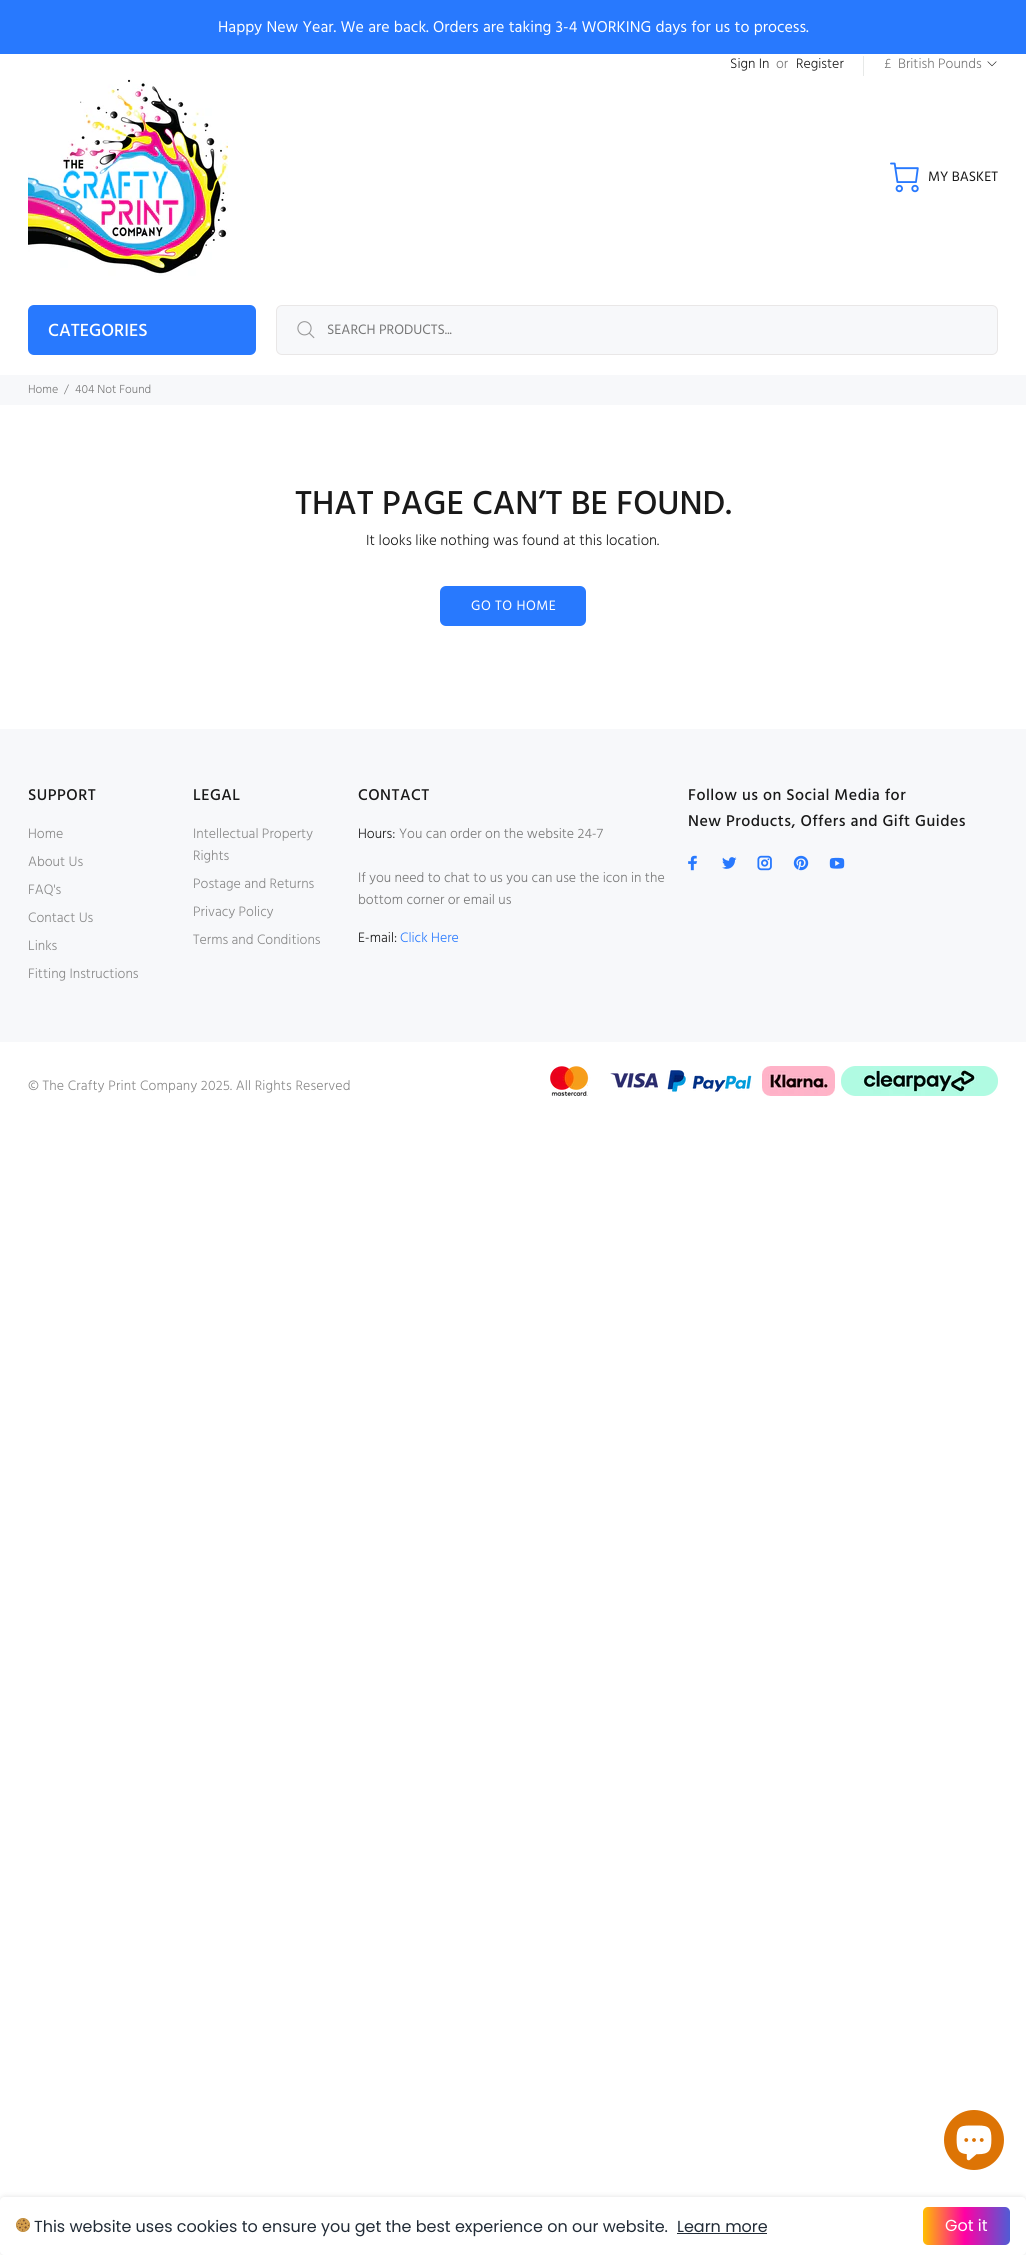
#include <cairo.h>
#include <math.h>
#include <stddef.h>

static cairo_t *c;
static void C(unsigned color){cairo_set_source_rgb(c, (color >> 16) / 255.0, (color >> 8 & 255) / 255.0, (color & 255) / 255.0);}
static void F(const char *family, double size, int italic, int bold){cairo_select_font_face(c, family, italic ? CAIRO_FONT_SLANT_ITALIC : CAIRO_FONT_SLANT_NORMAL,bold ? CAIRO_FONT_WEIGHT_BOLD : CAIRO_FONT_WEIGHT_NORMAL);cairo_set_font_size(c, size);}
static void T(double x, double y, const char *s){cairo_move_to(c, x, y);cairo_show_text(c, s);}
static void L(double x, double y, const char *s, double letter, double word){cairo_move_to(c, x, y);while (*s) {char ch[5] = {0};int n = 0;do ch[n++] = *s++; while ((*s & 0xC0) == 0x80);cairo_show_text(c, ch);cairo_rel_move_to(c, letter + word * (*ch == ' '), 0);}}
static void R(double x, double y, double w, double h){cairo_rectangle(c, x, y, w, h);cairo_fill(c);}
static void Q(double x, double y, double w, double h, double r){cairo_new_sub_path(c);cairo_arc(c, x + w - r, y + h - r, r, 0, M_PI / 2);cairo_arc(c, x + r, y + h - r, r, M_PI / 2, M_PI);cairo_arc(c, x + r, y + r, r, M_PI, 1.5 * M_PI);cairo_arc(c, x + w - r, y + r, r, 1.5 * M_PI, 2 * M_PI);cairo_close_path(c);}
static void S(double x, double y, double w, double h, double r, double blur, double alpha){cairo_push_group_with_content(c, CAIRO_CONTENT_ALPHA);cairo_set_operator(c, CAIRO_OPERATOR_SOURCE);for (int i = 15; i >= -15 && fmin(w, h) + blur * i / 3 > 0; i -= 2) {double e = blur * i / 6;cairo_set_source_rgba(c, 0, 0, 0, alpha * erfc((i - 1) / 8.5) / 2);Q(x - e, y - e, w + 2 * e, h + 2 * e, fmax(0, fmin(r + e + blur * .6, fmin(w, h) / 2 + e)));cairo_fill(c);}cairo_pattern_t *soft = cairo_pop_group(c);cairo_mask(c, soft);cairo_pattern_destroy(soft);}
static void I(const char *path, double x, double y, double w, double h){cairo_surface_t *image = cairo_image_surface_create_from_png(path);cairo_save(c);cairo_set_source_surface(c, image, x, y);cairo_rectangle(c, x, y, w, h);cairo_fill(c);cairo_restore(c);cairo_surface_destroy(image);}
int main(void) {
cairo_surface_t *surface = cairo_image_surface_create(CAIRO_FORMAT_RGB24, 1026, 2255);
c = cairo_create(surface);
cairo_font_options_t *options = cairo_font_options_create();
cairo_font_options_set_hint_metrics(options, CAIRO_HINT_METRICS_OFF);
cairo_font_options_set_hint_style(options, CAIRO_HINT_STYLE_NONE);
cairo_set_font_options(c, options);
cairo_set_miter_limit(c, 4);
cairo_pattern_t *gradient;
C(0xffffff);
cairo_paint(c);
C(0x2879fe);
R(0,0,1026,54);
F("Hind",16,0,0);
C(0xffffff);
L(218,32,"Happy New Year. We are back. Orders are taking 3-4 WORKING days for us to process.",0,.4);
F("Hind Light",14,0,0);
C(0x191919);
T(730,68,"Sign In");
C(0x777777);
T(776,68,"or");
C(0x191919);
T(796,68,"Register");
C(0xe7e9e8);
R(863,56,1,20);
C(0x777777);
T(884,68,"£  British Pounds");
I("1.png",987,61,10,6);
I("2.png",28,79,200,197);
I("3.png",890,162,29,31);
F("Hind",14,0,0);
C(0x191919);
T(928,181,"MY BASKET");
C(0x2879fe);
Q(28,305,228,50,6);
cairo_fill(c);
F("Hind Medium",18,0,0);
C(0xffffff);
T(48,336,"CATEGORIES");
C(0xf7f8fa);
Q(276.5,305.5,721,49,5.5);
cairo_fill_preserve(c);
C(0xe9e7e7);
cairo_set_line_width(c,1);
cairo_stroke(c);
I("4.png",297,321,18,18);
F("Hind",14,0,0);
C(0x777777);
T(327,334,"SEARCH PRODUCTS...");
C(0xf7f8fa);
R(0,375,1026,30);
F("Hind Light",12,0,0);
C(0x777777);
T(28,393,"Home");
T(64,393,"/");
T(75,393,"404 Not Found");
F("Hind Medium",34,0,0);
C(0x191919);
T(295,514,"THAT PAGE CAN’T BE FOUND.");
F("Hind Light",15,0,0);
T(366,545,"It looks like nothing was found at this location.");
C(0x2879fe);
Q(440,586,146,40,6);
cairo_fill(c);
F("Hind",14,0,0);
C(0xffffff);
L(471,610,"GO TO HOME",.5,0);
C(0xf7f8fa);
R(0,729,1026,313);
F("Hind Medium",16,0,0);
C(0x191919);
L(28,800,"SUPPORT",.5,0);
F("Hind Light",14,0,0);
C(0x888888);
T(28,838,"Home");
T(28,866,"About Us");
T(28,894,"FAQ's");
T(28,922,"Contact Us");
T(28,950,"Links");
T(28,978,"Fitting Instructions");
F("Hind Medium",16,0,0);
C(0x191919);
L(193,800,"LEGAL",.5,0);
F("Hind Light",14,0,0);
C(0x888888);
T(193,838,"Intellectual Property");
T(193,860,"Rights");
T(193,888,"Postage and Returns");
T(193,916,"Privacy Policy");
T(193,944,"Terms and Conditions");
F("Hind Medium",16,0,0);
C(0x191919);
L(358,800,"CONTACT",.5,0);
F("Hind Light",14,0,0);
T(358,838,"Hours:");
C(0x777777);
T(399,838,"You can order on the website 24-7");
T(358,882,"If you need to chat to us you can use the icon in the");
T(358,904,"bottom corner or email us");
C(0x191919);
T(358,942,"E-mail:");
C(0x2879fe);
T(400,942,"Click Here");
F("Hind Medium",16,0,0);
C(0x191919);
L(688,800,"Follow us on Social Media for",.5,0);
L(688,826,"New Products, Offers and Gift Guides",.5,0);
I("5.png",688,855,10,16);
I("6.png",722,857,15,12);
I("7.png",757,855,15,16);
I("8.png",793,855,16,16);
I("9.png",829,857,16,12);
F("Hind Light",14,0,0);
C(0x888888);
L(28,1090,"© The Crafty Print Company 2025. All Rights Reserved",.15,0);
I("10.png",550,1066,108,30);
I("11.png",667,1070,85,22);
I("12.png",762,1066,73,30);
I("13.png",841,1066,157,30);
C(0xdd7405);
cairo_arc(c,974,2140,30,0,2 * M_PI);
cairo_fill(c);
I("14.png",956,2125,36,36);
cairo_save(c);
cairo_set_fill_rule(c,CAIRO_FILL_RULE_EVEN_ODD);
cairo_new_path(c);
cairo_move_to(c,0,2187);
cairo_line_to(c,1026,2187);
cairo_line_to(c,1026,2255);
cairo_line_to(c,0,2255);
cairo_close_path(c);
cairo_move_to(c,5,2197);
cairo_line_to(c,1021,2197);
cairo_curve_to(c,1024,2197,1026,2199,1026,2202);
cairo_line_to(c,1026,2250);
cairo_curve_to(c,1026,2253,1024,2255,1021,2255);
cairo_line_to(c,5,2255);
cairo_curve_to(c,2,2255,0,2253,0,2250);
cairo_line_to(c,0,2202);
cairo_curve_to(c,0,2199,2,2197,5,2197);
cairo_close_path(c);
cairo_clip(c);
C(0x000000);
S(0,2197,1026,58,5,3,.12);
cairo_restore(c);
I("15.png",16,2218,14,14);
F("Poppins",16,0,0);
C(0x212b36);
T(34,2232,"This website uses cookies to ensure you get the best experience on our website.");
T(677,2232,"Learn more");
R(677,2233,90,1);
gradient = cairo_pattern_create_linear(923,2226,1010,2226);
cairo_pattern_add_color_stop_rgba(gradient,0,1,0.749,0,1);
cairo_pattern_add_color_stop_rgba(gradient,.48,1,0,0.643,1);
cairo_pattern_add_color_stop_rgba(gradient,1,0.31,0.361,0.835,1);
cairo_set_source(c,gradient);
cairo_pattern_destroy(gradient);
Q(923,2207,87,38,5);
cairo_fill(c);
C(0xffffff);
T(945,2231,"Got it");
cairo_surface_write_to_png(surface, "o.png");
cairo_font_options_destroy(options);
cairo_destroy(c);
cairo_surface_destroy(surface);
return 0;
}
